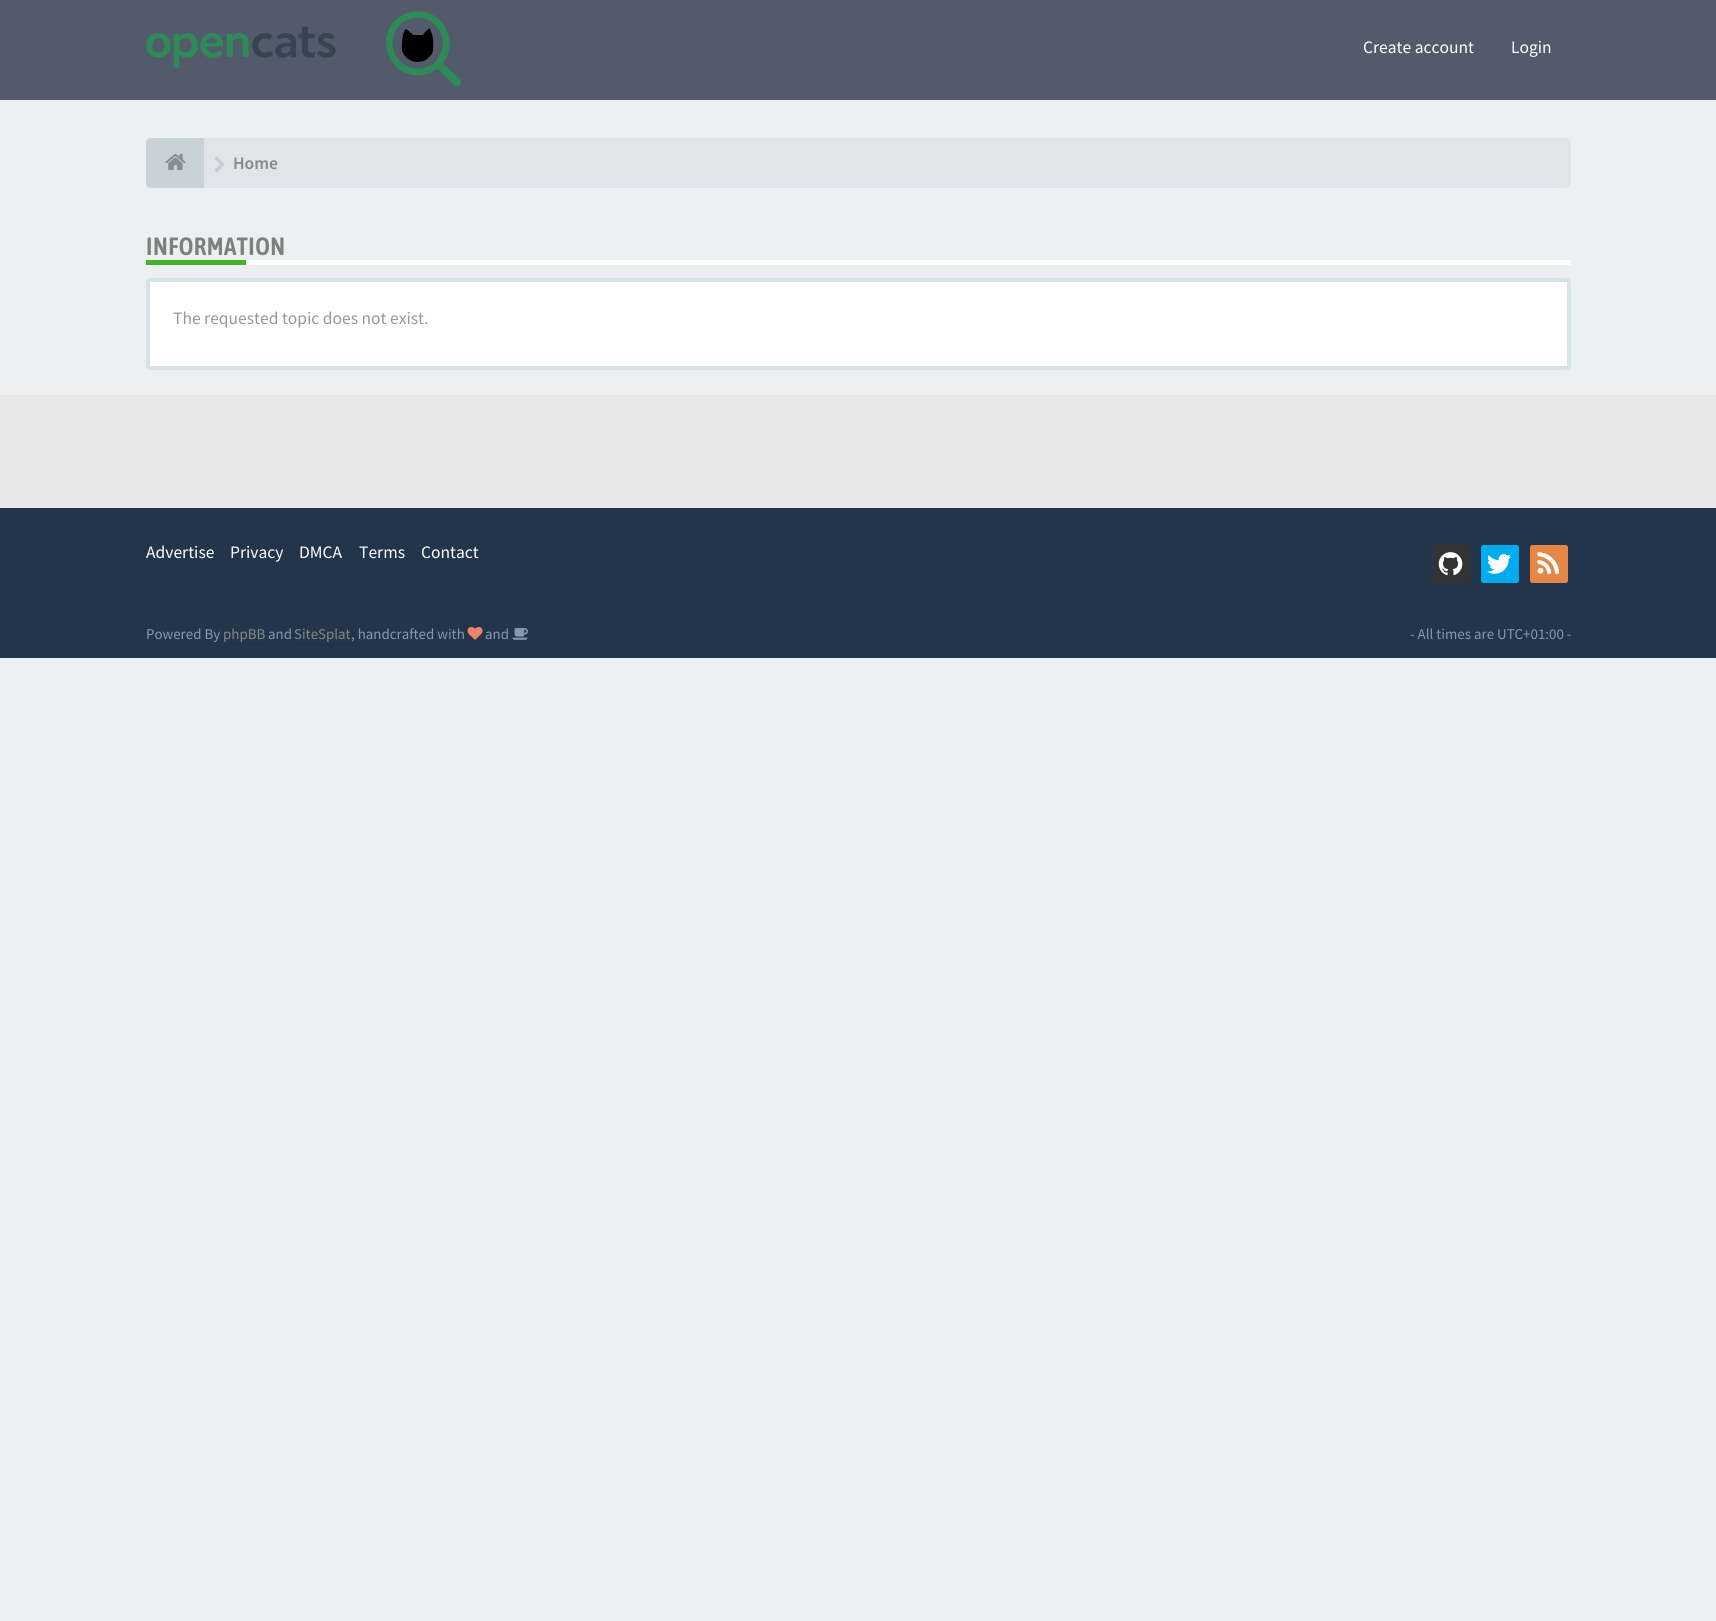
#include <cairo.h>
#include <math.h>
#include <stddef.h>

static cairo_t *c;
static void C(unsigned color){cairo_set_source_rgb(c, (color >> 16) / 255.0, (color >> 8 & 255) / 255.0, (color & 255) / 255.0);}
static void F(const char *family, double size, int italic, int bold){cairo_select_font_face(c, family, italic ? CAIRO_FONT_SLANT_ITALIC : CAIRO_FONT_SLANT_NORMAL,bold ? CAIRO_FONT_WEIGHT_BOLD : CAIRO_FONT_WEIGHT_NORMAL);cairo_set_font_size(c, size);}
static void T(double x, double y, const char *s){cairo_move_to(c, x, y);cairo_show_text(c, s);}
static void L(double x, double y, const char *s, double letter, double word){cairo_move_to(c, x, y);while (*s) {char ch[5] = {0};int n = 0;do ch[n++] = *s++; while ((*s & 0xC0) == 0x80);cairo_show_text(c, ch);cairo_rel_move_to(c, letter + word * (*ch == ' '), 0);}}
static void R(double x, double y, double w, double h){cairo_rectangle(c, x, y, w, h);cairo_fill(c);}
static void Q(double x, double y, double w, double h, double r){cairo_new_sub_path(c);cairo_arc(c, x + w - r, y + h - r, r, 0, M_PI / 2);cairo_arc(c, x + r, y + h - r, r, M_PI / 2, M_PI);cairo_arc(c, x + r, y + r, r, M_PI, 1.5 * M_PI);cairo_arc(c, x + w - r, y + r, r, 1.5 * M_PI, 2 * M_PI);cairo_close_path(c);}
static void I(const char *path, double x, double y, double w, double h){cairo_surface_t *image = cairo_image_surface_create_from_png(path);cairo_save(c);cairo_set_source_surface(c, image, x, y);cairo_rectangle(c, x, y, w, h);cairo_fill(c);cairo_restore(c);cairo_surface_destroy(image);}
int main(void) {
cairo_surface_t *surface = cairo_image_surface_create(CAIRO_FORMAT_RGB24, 1716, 1621);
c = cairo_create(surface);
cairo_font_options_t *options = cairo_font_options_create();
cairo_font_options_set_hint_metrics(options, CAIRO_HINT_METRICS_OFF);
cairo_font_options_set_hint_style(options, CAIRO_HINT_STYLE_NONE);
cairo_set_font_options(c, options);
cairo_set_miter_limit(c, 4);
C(0xecf0f1);
cairo_paint(c);
C(0x535a6c);
R(0,0,1716,100);
I("1.png",146,11,315,75);
F("Source Sans Pro",17.5,0,0);
C(0xffffff);
T(1363,53,"Create account");
T(1511,53,"Login");
C(0xe1e5eb);
Q(146,138,1425,50,5);
cairo_fill(c);
C(0xc8d2d8);
cairo_new_path(c);
cairo_move_to(c,151,138);
cairo_line_to(c,204,138);
cairo_line_to(c,204,188);
cairo_line_to(c,151,188);
cairo_curve_to(c,148,188,146,186,146,183);
cairo_line_to(c,146,143);
cairo_curve_to(c,146,140,148,138,151,138);
cairo_close_path(c);
cairo_fill(c);
I("2.png",165,153,21,17);
I("3.png",214,156,11,16);
F("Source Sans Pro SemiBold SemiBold",17.5,0,0);
C(0x888888);
T(233,169,"Home");
C(0xffffff);
R(246,260,1325,5);
F("Asap Condensed SemiBold",25,0,0);
C(0x7f7f7f);
L(146,255,"INFORMATION",.5,0);
C(0x46b12d);
R(146,260,100,5);
C(0xffffff);
Q(148,280,1421,88,2);
cairo_fill_preserve(c);
C(0xd8e3e6);
cairo_set_line_width(c,4);
cairo_stroke(c);
F("Source Sans Pro",17.5,0,0);
C(0x8d9aa5);
T(173,324,"The requested topic does not exist.");
C(0xe8e8e8);
R(0,395,1716,113);
C(0x22354a);
R(0,508,1716,150);
C(0xffffff);
T(146,558,"Advertise");
T(230,558,"Privacy");
T(299,558,"DMCA");
T(359,558,"Terms");
T(421,558,"Contact");
C(0x333333);
Q(1433,545,37,38,2.5);
cairo_fill(c);
I("4.png",1438,552,25,24);
C(0x00aced);
Q(1481,545,38,38,2.5);
cairo_fill(c);
I("5.png",1487,554,24,20);
C(0xe48645);
Q(1530,545,38,38,2.5);
cairo_fill(c);
I("6.png",1537,552,23,22);
F("Source Sans Pro",14.9,0,0);
C(0x869aaf);
T(146,639,"Powered By");
C(0x888888);
T(223,639,"phpBB");
C(0x1f3043);
R(223,644,42,1);
C(0x869aaf);
T(268,639,"and");
C(0x888888);
T(294,639,"SiteSplat");
C(0x1f3043);
R(295,644,56,1);
C(0x869aaf);
T(351,639,", handcrafted with");
I("7.png",467,627,16,13);
T(485,639,"and");
I("8.png",512,628,16,12);
T(1410,639,"- All times are UTC+01:00 -");
cairo_surface_write_to_png(surface, "o.png");
cairo_font_options_destroy(options);
cairo_destroy(c);
cairo_surface_destroy(surface);
return 0;
}
